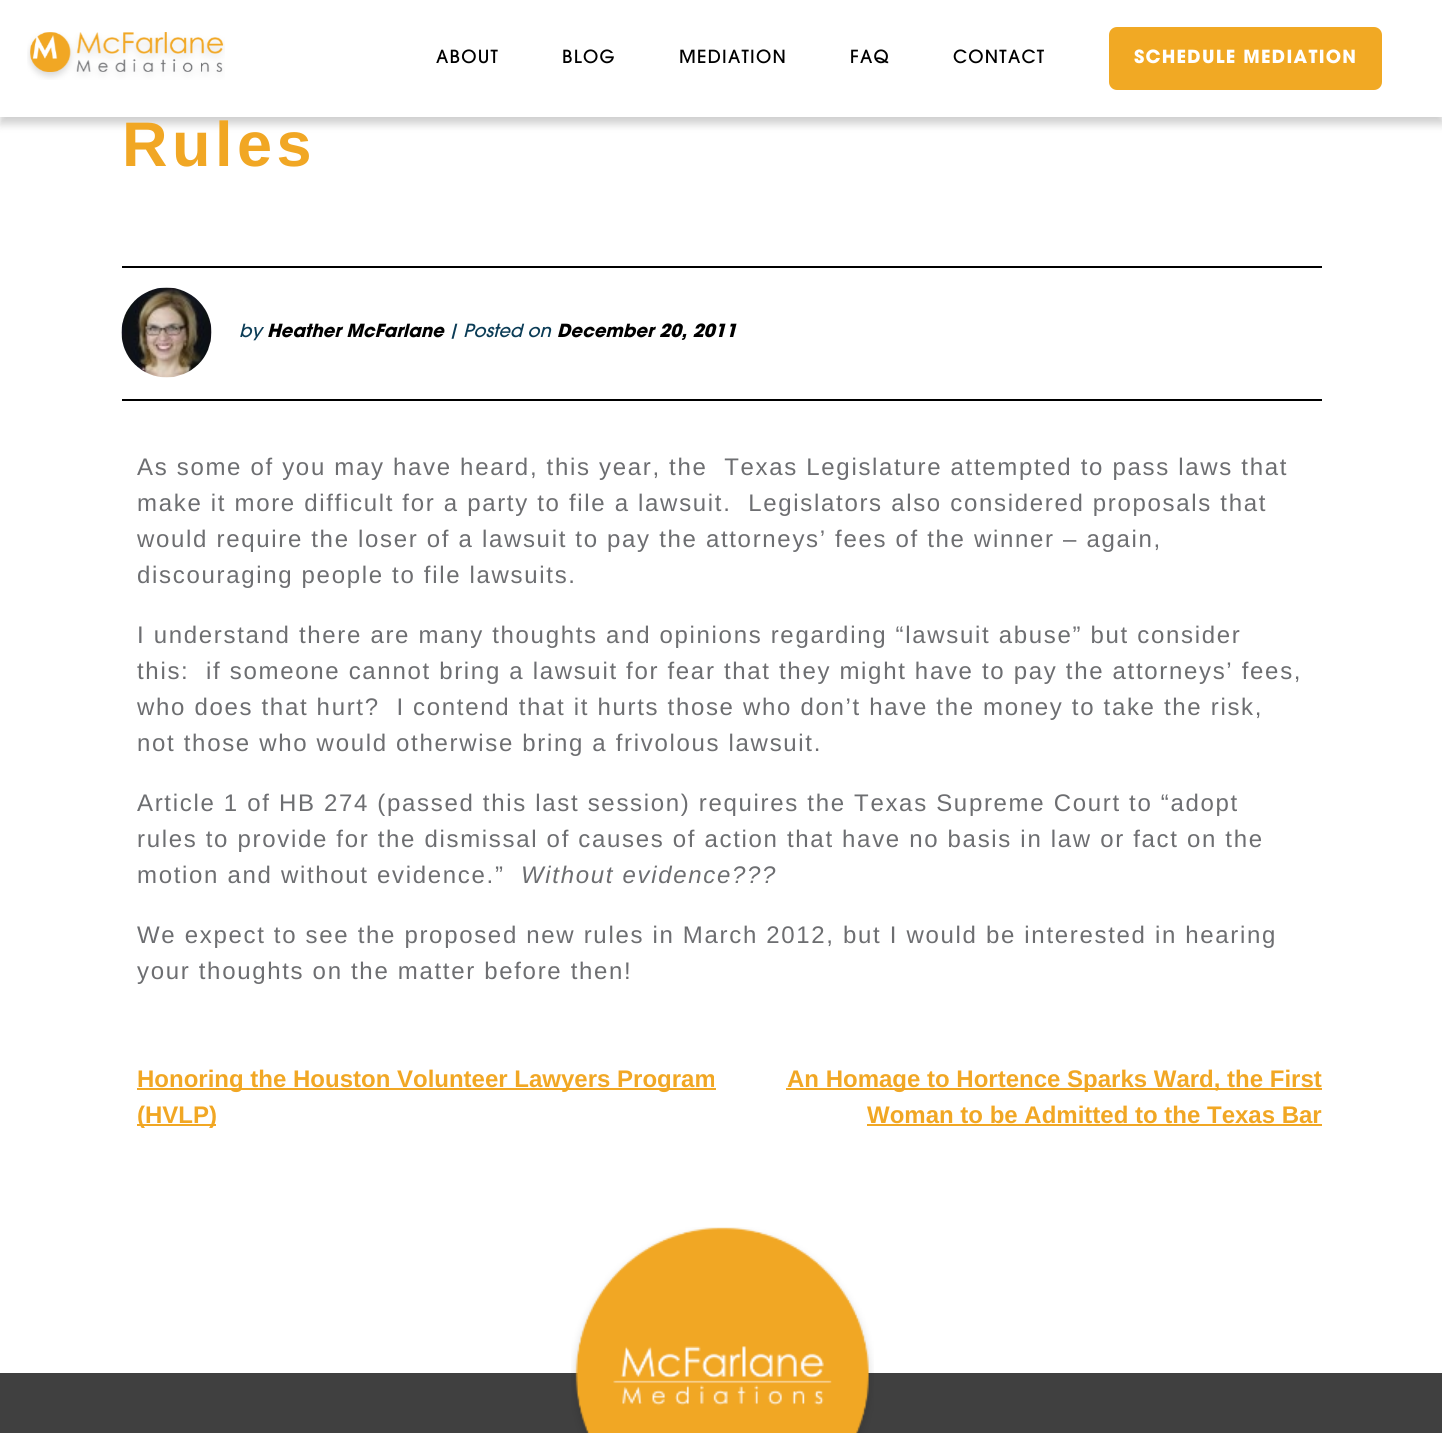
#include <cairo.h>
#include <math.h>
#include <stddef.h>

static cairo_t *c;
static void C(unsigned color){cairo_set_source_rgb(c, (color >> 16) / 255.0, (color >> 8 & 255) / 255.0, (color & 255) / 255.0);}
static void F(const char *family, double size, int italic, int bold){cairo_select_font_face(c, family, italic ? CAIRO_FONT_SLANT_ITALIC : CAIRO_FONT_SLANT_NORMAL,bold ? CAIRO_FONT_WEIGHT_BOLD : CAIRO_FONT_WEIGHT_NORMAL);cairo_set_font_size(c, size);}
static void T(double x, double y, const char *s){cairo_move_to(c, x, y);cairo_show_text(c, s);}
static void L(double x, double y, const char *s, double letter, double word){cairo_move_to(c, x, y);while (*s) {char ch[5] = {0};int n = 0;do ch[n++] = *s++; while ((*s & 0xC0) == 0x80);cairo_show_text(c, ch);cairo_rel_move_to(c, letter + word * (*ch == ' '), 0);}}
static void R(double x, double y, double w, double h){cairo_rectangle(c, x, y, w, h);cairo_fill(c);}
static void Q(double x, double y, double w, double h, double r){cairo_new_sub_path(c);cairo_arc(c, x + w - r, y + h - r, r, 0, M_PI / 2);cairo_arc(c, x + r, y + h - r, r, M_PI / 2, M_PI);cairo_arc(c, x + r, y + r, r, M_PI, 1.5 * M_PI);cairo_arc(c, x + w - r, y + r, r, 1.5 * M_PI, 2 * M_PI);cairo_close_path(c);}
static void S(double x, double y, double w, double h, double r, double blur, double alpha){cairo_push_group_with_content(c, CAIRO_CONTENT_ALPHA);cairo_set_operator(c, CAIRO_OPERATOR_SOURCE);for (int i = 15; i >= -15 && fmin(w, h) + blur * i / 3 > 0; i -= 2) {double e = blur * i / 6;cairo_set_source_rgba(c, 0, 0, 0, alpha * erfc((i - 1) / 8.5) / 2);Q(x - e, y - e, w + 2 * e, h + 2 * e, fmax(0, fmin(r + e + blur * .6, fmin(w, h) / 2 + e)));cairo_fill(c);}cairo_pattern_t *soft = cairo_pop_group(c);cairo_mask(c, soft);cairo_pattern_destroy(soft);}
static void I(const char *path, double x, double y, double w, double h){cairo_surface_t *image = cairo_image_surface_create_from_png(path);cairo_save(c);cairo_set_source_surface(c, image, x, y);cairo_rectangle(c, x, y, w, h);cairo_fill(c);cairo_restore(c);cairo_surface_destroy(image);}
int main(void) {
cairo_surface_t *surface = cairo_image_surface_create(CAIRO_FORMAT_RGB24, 1442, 1433);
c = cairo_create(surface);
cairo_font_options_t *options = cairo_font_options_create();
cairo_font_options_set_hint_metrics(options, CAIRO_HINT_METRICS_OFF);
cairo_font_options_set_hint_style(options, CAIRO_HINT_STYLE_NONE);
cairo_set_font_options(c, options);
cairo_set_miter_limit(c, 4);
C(0xffffff);
cairo_paint(c);
C(0x000000);
S(0,8,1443,117,0,4.5,.1);
S(0,6,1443,117,0,4,.1);
C(0xffffff);
R(0,0,1442,117);
I("1.png",27,32,198,48);
F("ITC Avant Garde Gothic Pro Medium",18,0,0);
C(0x000000);
L(436,63,"ABOUT",1.25,0);
L(562,63,"BLOG",1.25,0);
L(679,63,"MEDIATION",1.25,0);
L(850,63,"FAQ",1.25,0);
L(953,63,"CONTACT",1.25,0);
C(0xf1a924);
Q(1109,27,273,63,8);
cairo_fill(c);
F("ITC Avant Garde Gothic Pro",18,0,1);
C(0xffffff);
L(1134,63,"SCHEDULE MEDIATION",1.25,0);
F("Liberation Sans",63,0,1);
C(0xf1a724);
L(122,166,"Rules",4.5,0);
C(0x000000);
R(122,266,1200,2);
R(122,399,1200,2);
I("2.png",121,287,91,91);
F("ITC Avant Garde Gothic Pro Medium",18,1,0);
C(0x0b3c56);
T(239,337,"by");
F("ITC Avant Garde Gothic Pro",18,1,1);
C(0x000000);
T(267,337,"Heather McFarlane");
F("ITC Avant Garde Gothic Pro Medium",18,1,0);
C(0x0b3c56);
T(448,337,"| Posted on");
F("ITC Avant Garde Gothic Pro",18,1,1);
C(0x000000);
T(557,337,"December 20, 2011");
F("Liberation Sans",24,0,0);
C(0x6d6e71);
L(137,475,"As some of you may have heard, this year, the  Texas Legislature attempted to pass laws that",1.68,0);
L(137,511,"make it more difficult for a party to file a lawsuit.  Legislators also considered proposals that",1.68,0);
L(137,547,"would require the loser of a lawsuit to pay the attorneys’ fees of the winner – again,",1.68,0);
L(137,583,"discouraging people to file lawsuits.",1.68,0);
L(137,643,"I understand there are many thoughts and opinions regarding “lawsuit abuse” but consider",1.68,0);
L(137,679,"this:  if someone cannot bring a lawsuit for fear that they might have to pay the attorneys’ fees,",1.68,0);
L(137,715,"who does that hurt?  I contend that it hurts those who don’t have the money to take the risk,",1.68,0);
L(137,751,"not those who would otherwise bring a frivolous lawsuit.",1.68,0);
L(137,811,"Article 1 of HB 274 (passed this last session) requires the Texas Supreme Court to “adopt",1.68,0);
L(137,847,"rules to provide for the dismissal of causes of action that have no basis in law or fact on the",1.68,0);
L(137,883,"motion and without evidence.”",1.68,0);
F("Liberation Sans",24,1,0);
L(521,883,"Without evidence?\077?",1.68,0);
F("Liberation Sans",24,0,0);
L(137,943,"We expect to see the proposed new rules in March 2012, but I would be interested in hearing",1.68,0);
L(137,979,"your thoughts on the matter before then!",1.68,0);
C(0xf1a724);
R(137,1088,579,2);
F("Liberation Sans",24,0,1);
T(137,1087,"Honoring the Houston Volunteer Lawyers Program");
R(137,1124,79,2);
T(137,1123,"(HVLP)");
R(786,1088,536,2);
T(787,1087,"An Homage to Hortence Sparks Ward, the First");
T(867,1123,"Woman to be Admitted to the Texas Bar");
R(867,1124,455,2);
C(0x404040);
R(0,1373,1442,60);
I("3.png",571,1227,303,206);
cairo_surface_write_to_png(surface, "o.png");
cairo_font_options_destroy(options);
cairo_destroy(c);
cairo_surface_destroy(surface);
return 0;
}
